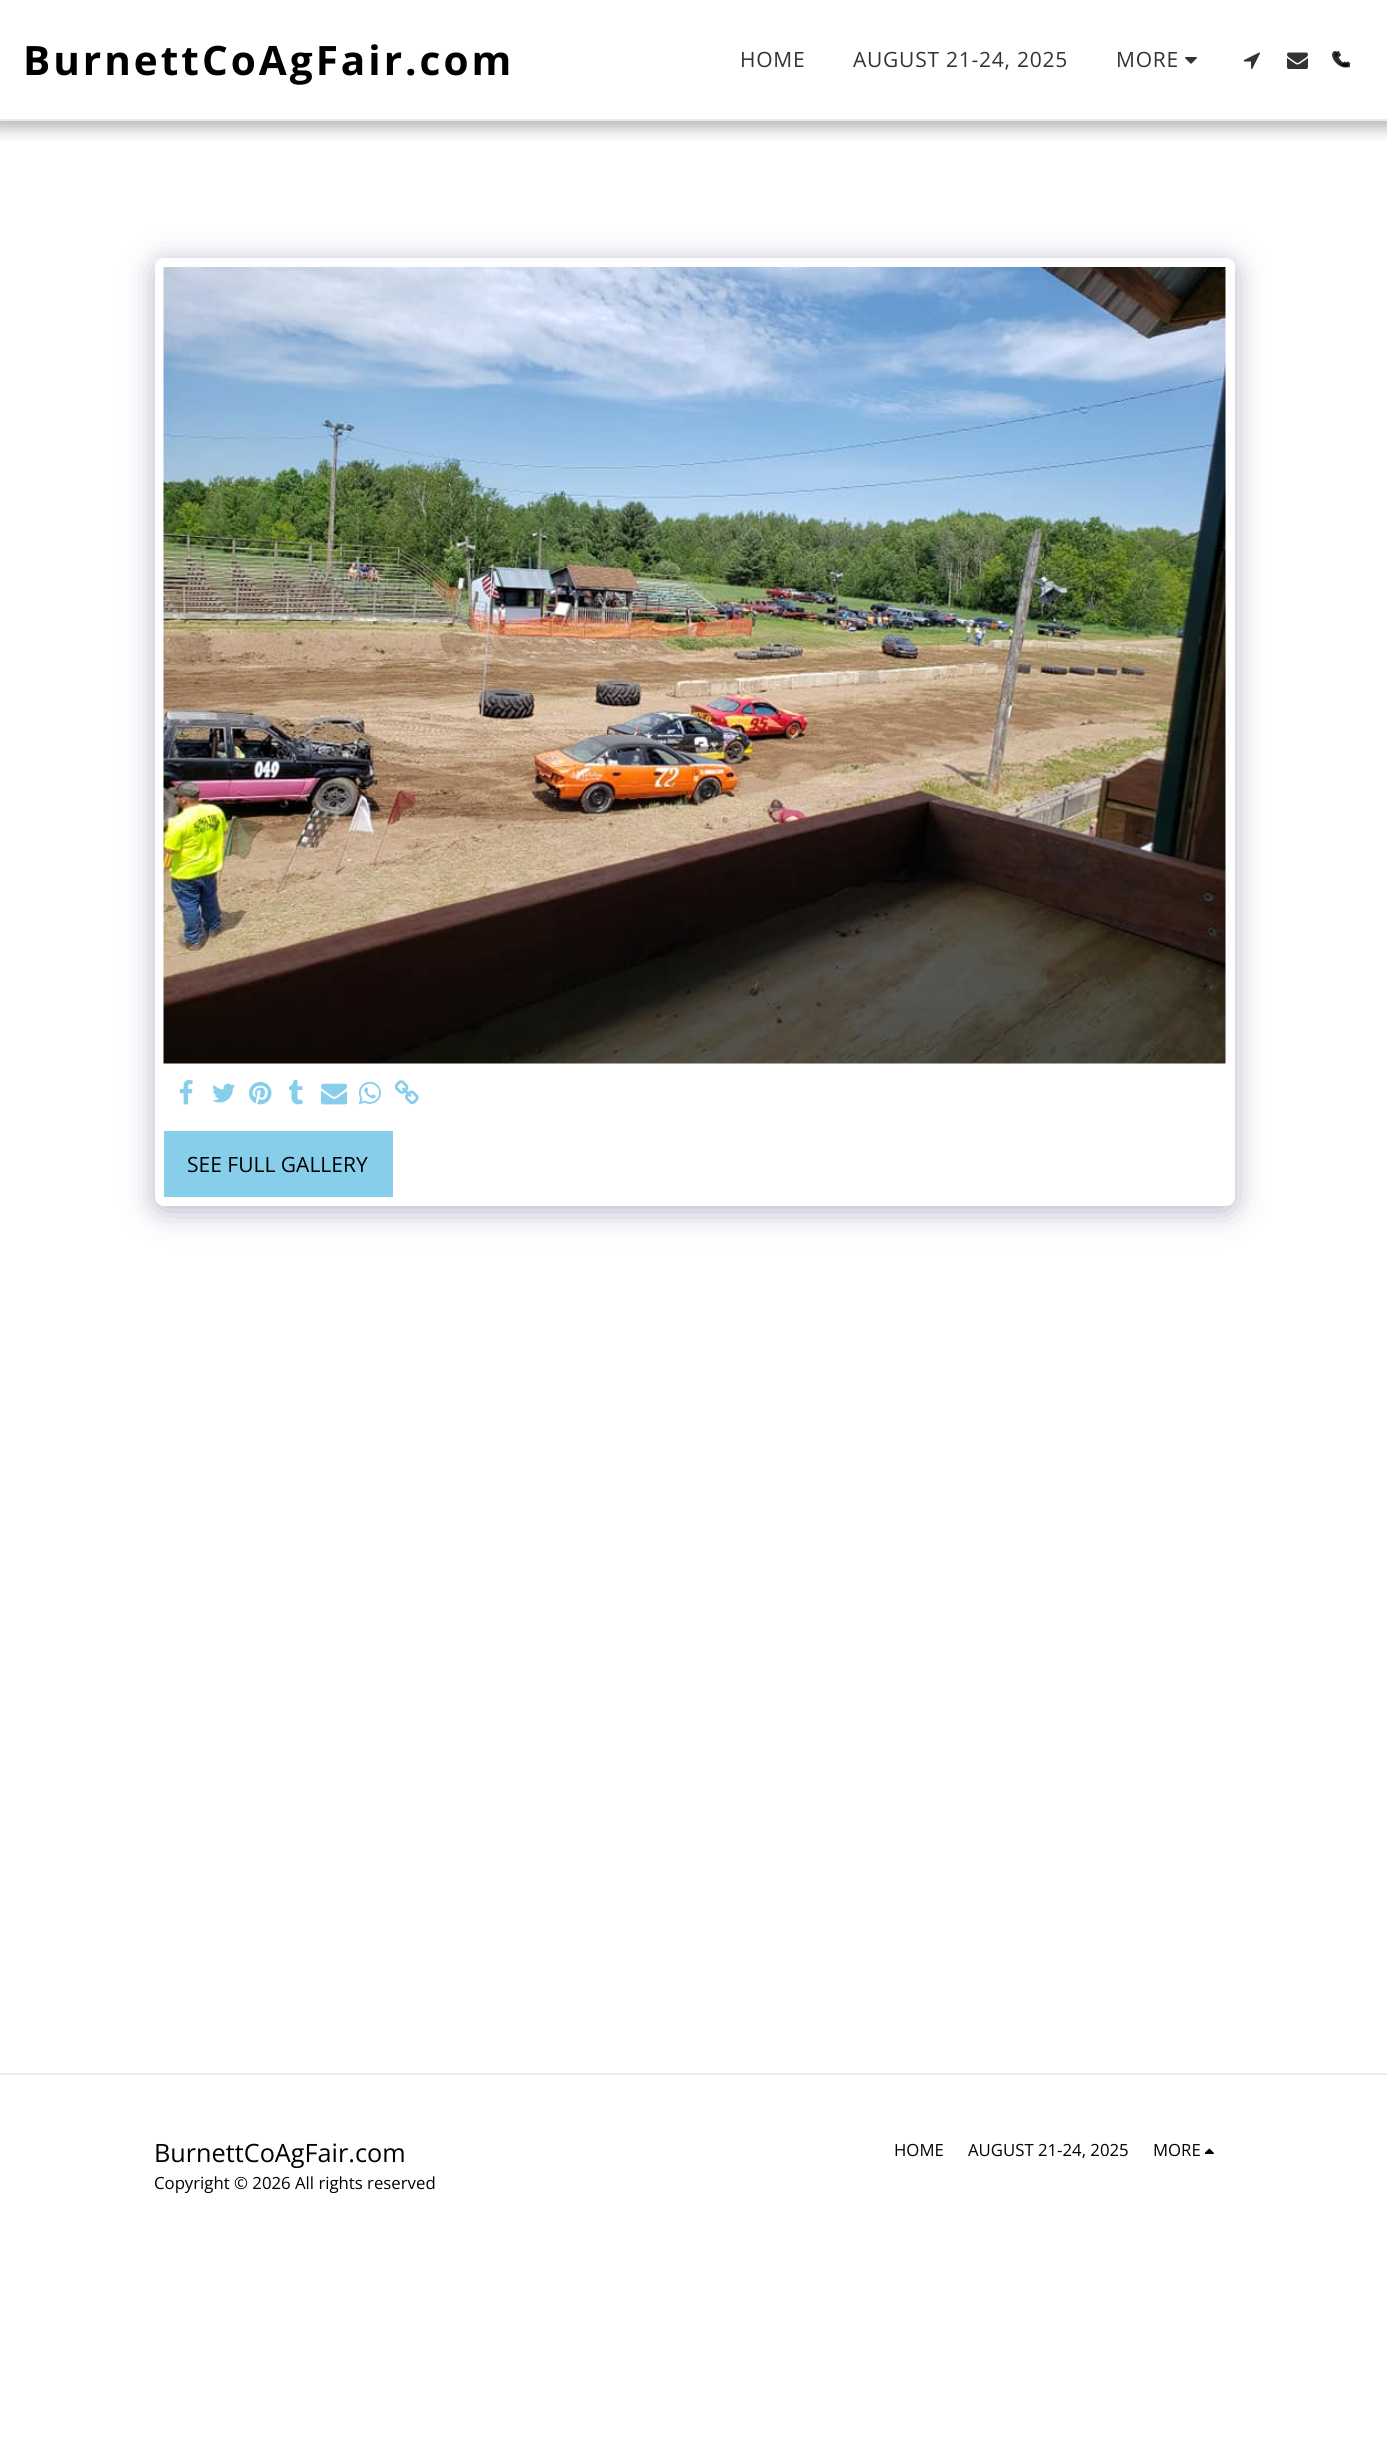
#include <cairo.h>
#include <math.h>
#include <stddef.h>

static cairo_t *c;
static void C(unsigned color){cairo_set_source_rgb(c, (color >> 16) / 255.0, (color >> 8 & 255) / 255.0, (color & 255) / 255.0);}
static void F(const char *family, double size, int italic, int bold){cairo_select_font_face(c, family, italic ? CAIRO_FONT_SLANT_ITALIC : CAIRO_FONT_SLANT_NORMAL,bold ? CAIRO_FONT_WEIGHT_BOLD : CAIRO_FONT_WEIGHT_NORMAL);cairo_set_font_size(c, size);}
static void T(double x, double y, const char *s){cairo_move_to(c, x, y);cairo_show_text(c, s);}
static void L(double x, double y, const char *s, double letter, double word){cairo_move_to(c, x, y);while (*s) {char ch[5] = {0};int n = 0;do ch[n++] = *s++; while ((*s & 0xC0) == 0x80);cairo_show_text(c, ch);cairo_rel_move_to(c, letter + word * (*ch == ' '), 0);}}
static void R(double x, double y, double w, double h){cairo_rectangle(c, x, y, w, h);cairo_fill(c);}
static void Q(double x, double y, double w, double h, double r){cairo_new_sub_path(c);cairo_arc(c, x + w - r, y + h - r, r, 0, M_PI / 2);cairo_arc(c, x + r, y + h - r, r, M_PI / 2, M_PI);cairo_arc(c, x + r, y + r, r, M_PI, 1.5 * M_PI);cairo_arc(c, x + w - r, y + r, r, 1.5 * M_PI, 2 * M_PI);cairo_close_path(c);}
static void S(double x, double y, double w, double h, double r, double blur, double alpha){cairo_push_group_with_content(c, CAIRO_CONTENT_ALPHA);cairo_set_operator(c, CAIRO_OPERATOR_SOURCE);for (int i = 15; i >= -15 && fmin(w, h) + blur * i / 3 > 0; i -= 2) {double e = blur * i / 6;cairo_set_source_rgba(c, 0, 0, 0, alpha * erfc((i - 1) / 8.5) / 2);Q(x - e, y - e, w + 2 * e, h + 2 * e, fmax(0, fmin(r + e + blur * .6, fmin(w, h) / 2 + e)));cairo_fill(c);}cairo_pattern_t *soft = cairo_pop_group(c);cairo_mask(c, soft);cairo_pattern_destroy(soft);}
static void I(const char *path, double x, double y, double w, double h){cairo_surface_t *image = cairo_image_surface_create_from_png(path);cairo_save(c);cairo_set_source_surface(c, image, x, y);cairo_rectangle(c, x, y, w, h);cairo_fill(c);cairo_restore(c);cairo_surface_destroy(image);}
int main(void) {
cairo_surface_t *surface = cairo_image_surface_create(CAIRO_FORMAT_RGB24, 1387, 2442);
c = cairo_create(surface);
cairo_font_options_t *options = cairo_font_options_create();
cairo_font_options_set_hint_metrics(options, CAIRO_HINT_METRICS_OFF);
cairo_font_options_set_hint_style(options, CAIRO_HINT_STYLE_NONE);
cairo_set_font_options(c, options);
cairo_set_miter_limit(c, 4);
C(0xffffff);
cairo_paint(c);
cairo_save(c);
cairo_rectangle(c,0,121,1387,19);
cairo_clip(c);
C(0x000000);
S(-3,0,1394,126,0,9,.35);
cairo_restore(c);
C(0xebebeb);
R(0,119,1387,2);
F("Open Sans",40.5,0,1);
C(0x000000);
L(23,75,"BurnettCoAgFair.com",3,0);
F("Open Sans",21,0,0);
C(0x333333);
L(740,67,"HOME",.75,0);
L(853,67,"AUGUST 21-24, 2025",.75,0);
L(1116,67,"MORE",.75,0);
I("1.png",1185,57,12,7);
I("2.png",1244,52,16,17);
I("3.png",1287,52,21,17);
I("4.png",1335,51,15,17);
I("5.png",1332,51,17,17);
C(0x4d3f7a);
S(155,263,1080,948,9,15,.4);
C(0xffffff);
Q(155,258,1080,948,9);
cairo_fill(c);
I("6.png",163,267,1063,797);
I("7.png",179,1080,14,25);
I("8.png",212,1083,23,20);
I("9.png",249,1081,23,24);
I("10.png",289,1080,14,25);
I("11.png",321,1083,26,22);
I("12.png",359,1081,22,24);
I("13.png",395,1080,24,25);
C(0x87ceeb);
R(164,1131,229,66);
C(0x000000);
T(187,1172,"SEE FULL GALLERY");
C(0xebebeb);
R(0,2073,1387,2);
F("Open Sans",25.25,0,0);
C(0x000000);
T(154,2162,"BurnettCoAgFair.com");
F("Open Sans",16.75,0,0);
T(154,2189,"Copyright © 2026 All rights reserved");
T(894,2156,"HOME");
T(968,2156,"AUGUST 21-24, 2025");
T(1153,2156,"MORE");
I("14.png",1205,2148,9,6);
cairo_surface_write_to_png(surface, "o.png");
cairo_font_options_destroy(options);
cairo_destroy(c);
cairo_surface_destroy(surface);
return 0;
}
